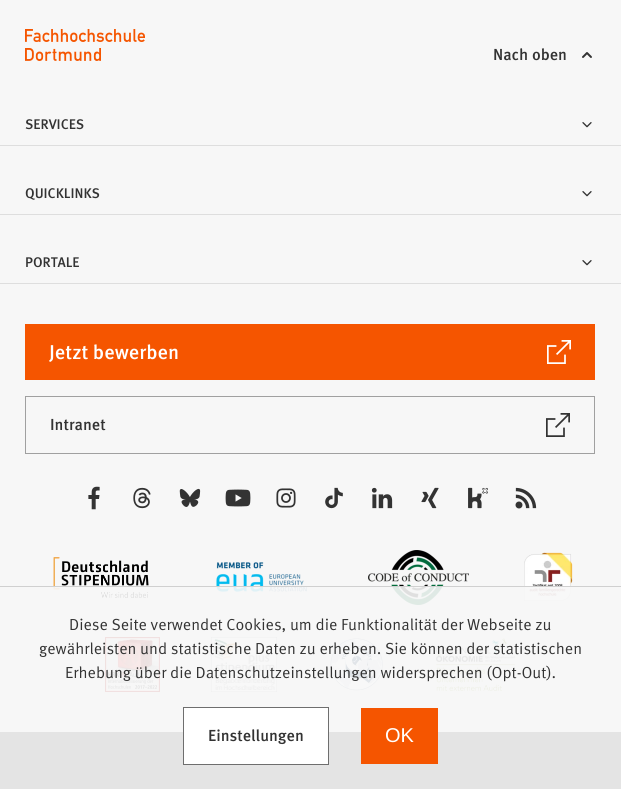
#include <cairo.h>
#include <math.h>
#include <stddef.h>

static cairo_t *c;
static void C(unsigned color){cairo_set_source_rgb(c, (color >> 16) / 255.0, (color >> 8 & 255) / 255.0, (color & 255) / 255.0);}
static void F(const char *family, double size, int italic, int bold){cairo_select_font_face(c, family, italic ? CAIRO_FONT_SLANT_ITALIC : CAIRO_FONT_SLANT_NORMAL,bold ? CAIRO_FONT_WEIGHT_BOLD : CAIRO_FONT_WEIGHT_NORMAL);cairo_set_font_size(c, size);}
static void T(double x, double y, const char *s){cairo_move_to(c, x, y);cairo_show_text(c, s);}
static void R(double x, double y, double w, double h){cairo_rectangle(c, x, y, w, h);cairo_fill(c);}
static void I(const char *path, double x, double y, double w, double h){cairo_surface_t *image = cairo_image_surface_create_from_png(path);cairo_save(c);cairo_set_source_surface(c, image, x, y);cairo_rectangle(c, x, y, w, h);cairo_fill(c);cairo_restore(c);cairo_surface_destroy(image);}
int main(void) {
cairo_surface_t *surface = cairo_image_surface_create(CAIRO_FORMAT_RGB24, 621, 789);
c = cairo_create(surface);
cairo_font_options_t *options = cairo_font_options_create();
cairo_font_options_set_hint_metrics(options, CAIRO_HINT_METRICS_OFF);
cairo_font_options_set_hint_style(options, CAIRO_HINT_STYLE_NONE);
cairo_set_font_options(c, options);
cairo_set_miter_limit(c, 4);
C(0xf7f7f7);
cairo_paint(c);
I("1.png",25,29,120,32);
F("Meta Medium",16,0,0);
C(0x333333);
T(493,60,"Nach oben");
I("2.png",582,52,10,6);
F("Meta Medium",14,0,0);
T(25,129,"SERVICES");
I("3.png",582,122,10,6);
C(0xdedede);
R(0,145,621,1);
C(0x333333);
T(25,198,"QUICKLINKS");
I("3.png",582,191,10,6);
C(0xdedede);
R(0,214,621,1);
C(0x333333);
T(25,267,"PORTALE");
I("3.png",582,260,10,6);
C(0xdedede);
R(0,283,621,1);
C(0xf55500);
R(25,324,570,56);
F("Meta Medium",20,0,0);
C(0xffffff);
T(49,359,"Jetzt bewerben");
I("4.png",547,340,24,24);
cairo_rectangle(c,25.5,396.5,569,57);
C(0xa0a0a0);
cairo_set_line_width(c,1);
cairo_stroke(c);
F("Meta Medium",16,0,0);
C(0x333333);
T(50,430,"Intranet");
I("5.png",546,413,24,24);
I("6.png",88,486,12,24);
I("7.png",133,487,18,22);
I("8.png",179,488,22,19);
I("9.png",225,489,26,18);
I("10.png",276,488,20,20);
I("11.png",325,487,18,22);
I("12.png",371,487,22,22);
I("13.png",421,487,18,22);
I("14.png",468,487,20,22);
I("15.png",515,487,22,22);
I("16.png",53,557,96,41);
I("17.png",216,562,91,30);
I("18.png",368,550,101,55);
I("19.png",524,552,49,49);
I("20.png",105,637,55,55);
I("21.png",211,637,66,55);
I("22.png",330,638,53,53);
I("23.png",436,638,80,53);
R(0,732,621,57);
cairo_set_source_rgba(c,0.969,0.969,0.969,0.9);
R(0,587,621,202);
C(0xd0d0d0);
R(0,586,621,1);
F("Meta",16,0,0);
C(0x333333);
T(69,630,"Diese Seite verwendet Cookies, um die Funktionalität der Webseite zu");
T(39,654,"gewährleisten und statistische Daten zu erheben. Sie können der statistischen");
T(65,678,"Erhebung über die Datenschutzeinstellungen widersprechen (Opt-Out).");
C(0xffffff);
cairo_rectangle(c,183.5,707.5,145,57);
cairo_fill_preserve(c);
C(0x6e6e6e);
cairo_stroke(c);
F("Meta Medium",16,0,0);
C(0x333333);
T(208,741,"Einstellungen");
C(0xf55500);
R(361,708,77,56);
F("Liberation Sans",20,0,0);
C(0xffffff);
T(385,742,"OK");
cairo_surface_write_to_png(surface, "o.png");
cairo_font_options_destroy(options);
cairo_destroy(c);
cairo_surface_destroy(surface);
return 0;
}
